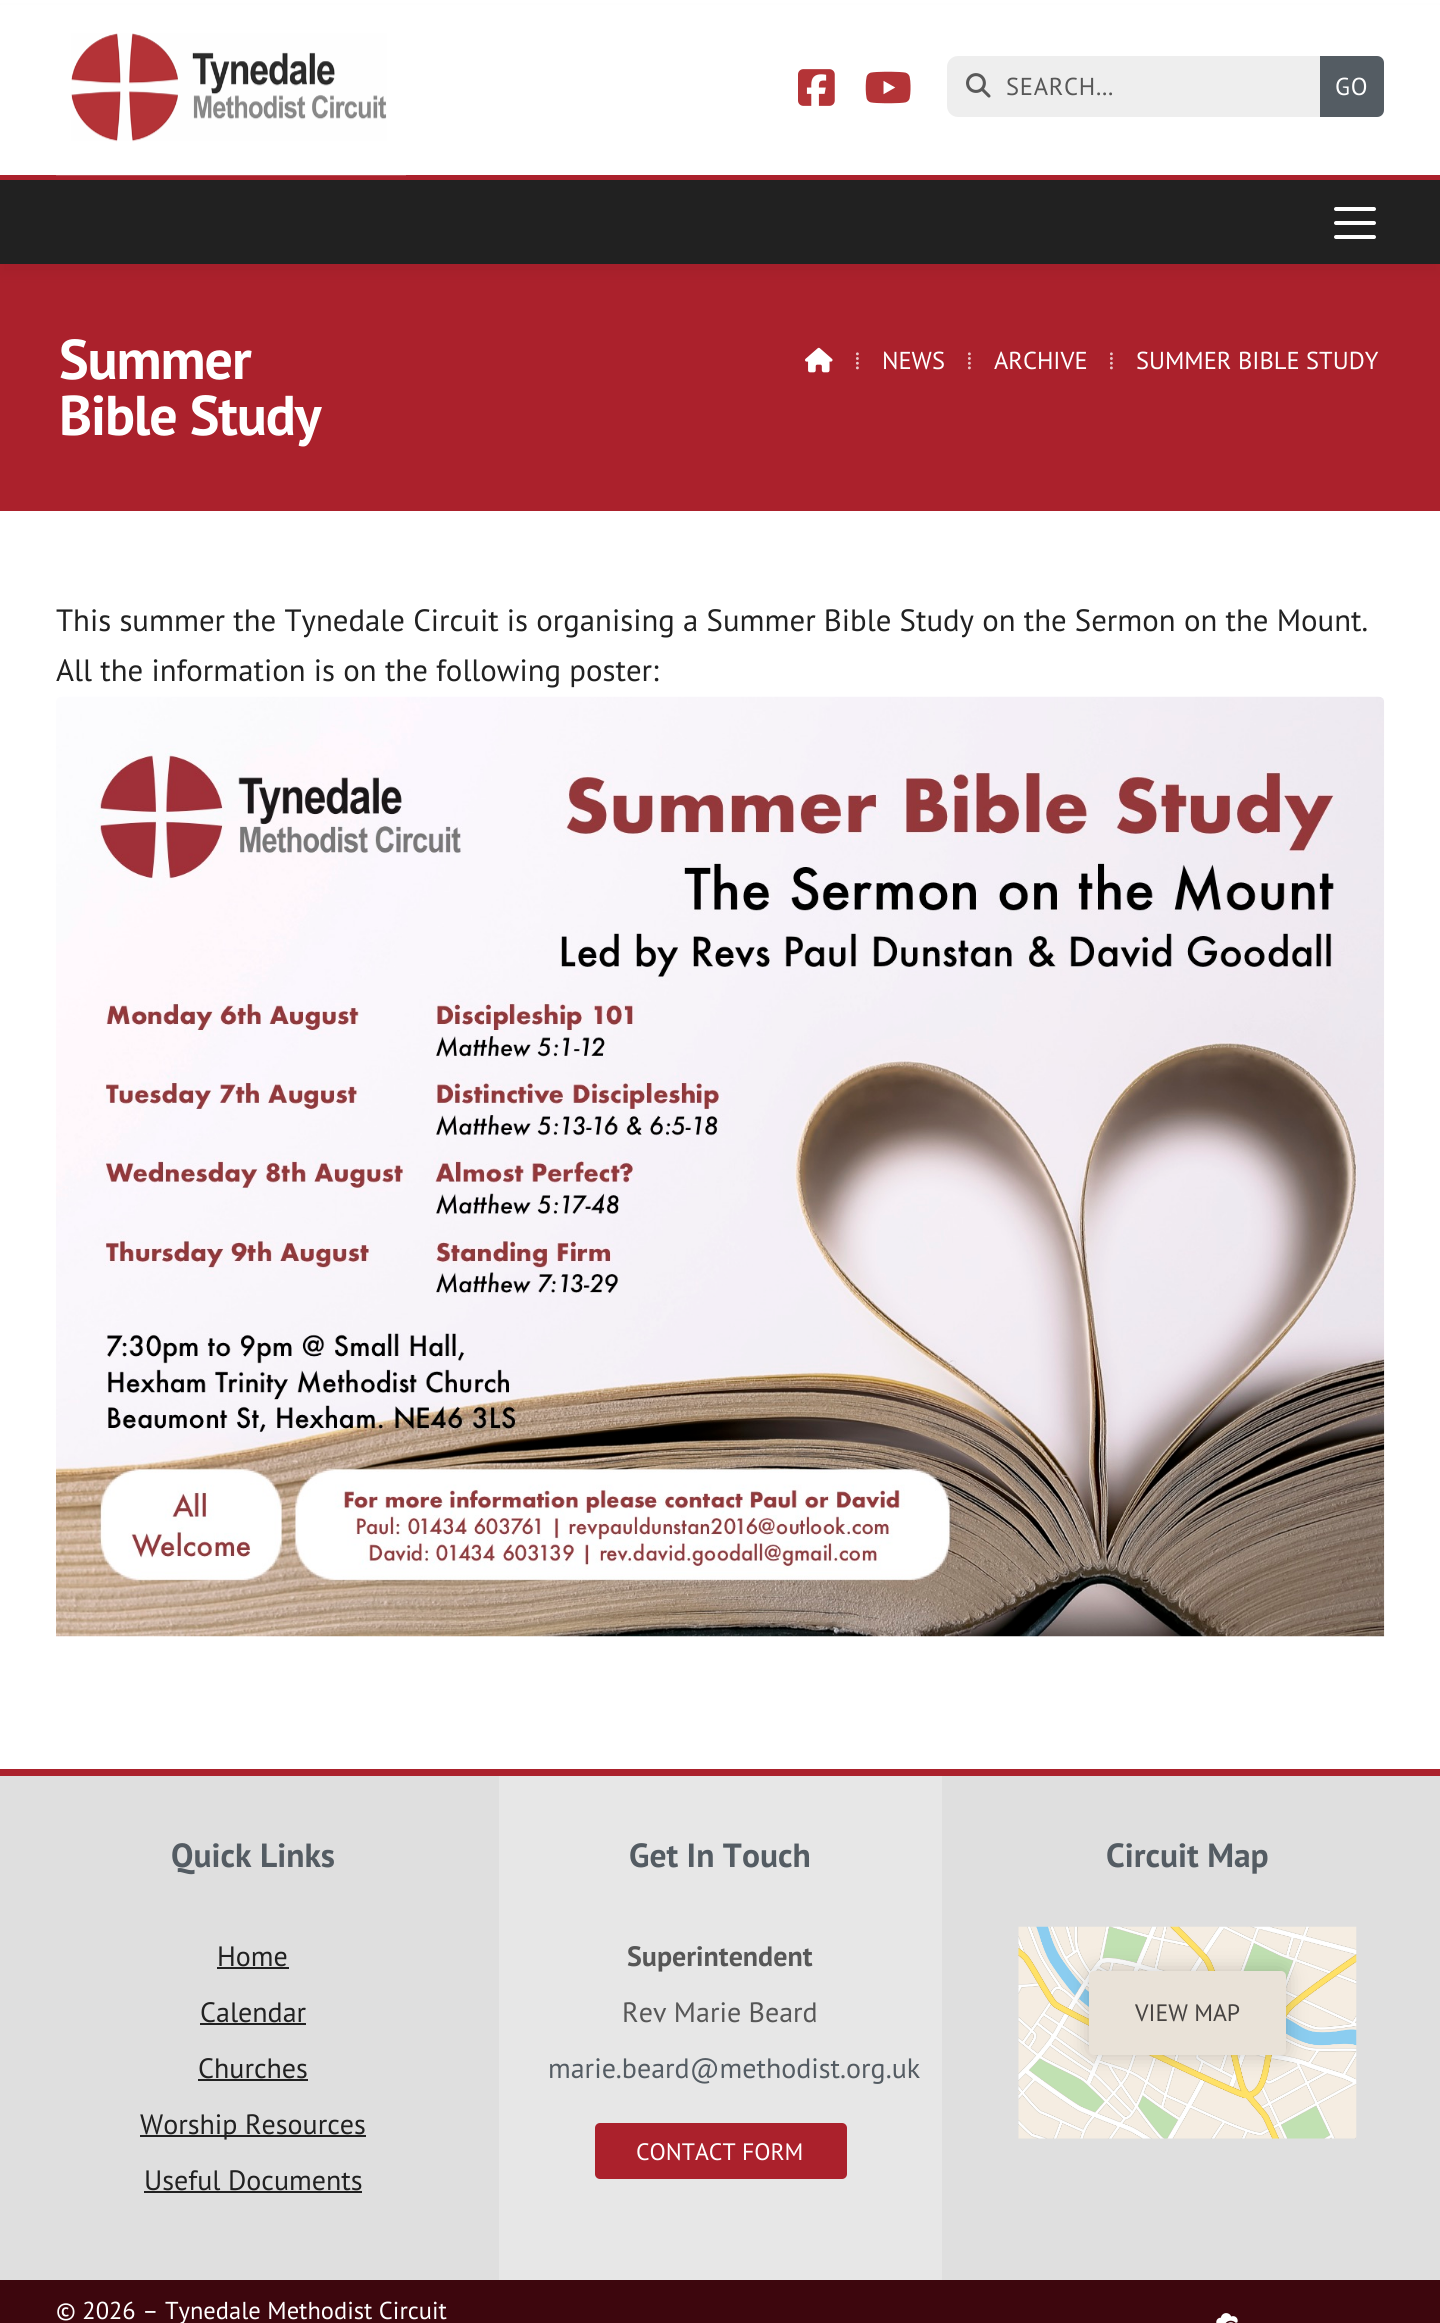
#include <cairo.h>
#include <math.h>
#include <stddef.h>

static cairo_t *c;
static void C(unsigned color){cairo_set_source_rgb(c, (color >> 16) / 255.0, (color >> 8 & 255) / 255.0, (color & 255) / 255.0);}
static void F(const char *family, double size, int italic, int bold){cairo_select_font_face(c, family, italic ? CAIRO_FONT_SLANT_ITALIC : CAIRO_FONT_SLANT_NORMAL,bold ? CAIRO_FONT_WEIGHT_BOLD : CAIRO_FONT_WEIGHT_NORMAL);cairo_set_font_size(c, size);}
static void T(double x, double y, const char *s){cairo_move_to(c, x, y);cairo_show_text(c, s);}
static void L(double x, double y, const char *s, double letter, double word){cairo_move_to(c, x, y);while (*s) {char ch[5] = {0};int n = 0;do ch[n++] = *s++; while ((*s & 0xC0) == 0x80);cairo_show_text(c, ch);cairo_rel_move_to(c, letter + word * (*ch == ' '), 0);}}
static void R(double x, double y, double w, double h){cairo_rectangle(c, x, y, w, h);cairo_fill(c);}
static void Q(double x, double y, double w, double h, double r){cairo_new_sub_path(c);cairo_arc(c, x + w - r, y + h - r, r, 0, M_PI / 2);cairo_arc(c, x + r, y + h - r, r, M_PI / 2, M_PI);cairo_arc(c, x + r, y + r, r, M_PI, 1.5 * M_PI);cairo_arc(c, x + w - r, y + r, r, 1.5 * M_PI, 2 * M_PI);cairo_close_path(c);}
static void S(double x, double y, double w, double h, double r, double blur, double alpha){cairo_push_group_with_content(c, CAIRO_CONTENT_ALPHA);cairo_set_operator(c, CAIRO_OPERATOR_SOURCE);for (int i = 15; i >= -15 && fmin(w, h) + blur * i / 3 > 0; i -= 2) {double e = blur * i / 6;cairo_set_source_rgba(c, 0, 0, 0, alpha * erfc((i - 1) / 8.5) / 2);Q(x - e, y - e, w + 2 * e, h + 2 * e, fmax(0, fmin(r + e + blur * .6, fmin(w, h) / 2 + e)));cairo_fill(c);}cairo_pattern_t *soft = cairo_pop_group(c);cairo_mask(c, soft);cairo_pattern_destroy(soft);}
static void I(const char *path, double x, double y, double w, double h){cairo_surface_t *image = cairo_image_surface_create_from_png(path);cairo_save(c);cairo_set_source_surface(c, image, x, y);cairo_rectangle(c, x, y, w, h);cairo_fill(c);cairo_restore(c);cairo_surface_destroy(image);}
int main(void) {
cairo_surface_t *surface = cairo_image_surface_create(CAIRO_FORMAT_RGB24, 1440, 2323);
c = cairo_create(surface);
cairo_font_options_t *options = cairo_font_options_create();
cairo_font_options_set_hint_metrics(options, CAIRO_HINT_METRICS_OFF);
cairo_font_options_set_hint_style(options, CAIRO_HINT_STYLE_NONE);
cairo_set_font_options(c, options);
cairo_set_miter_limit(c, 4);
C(0xffffff);
cairo_paint(c);
C(0xab212c);
R(0,264,1440,247);
C(0x780a1c);
S(0,11,1440,264,0,4.5,.1);
C(0xffffff);
R(0,5,1440,170);
C(0xab212c);
R(0,175,1440,5);
I("1.png",56,33,350,143);
I("2.png",798,69,37,37);
I("3.png",865,71,46,33);
C(0xeeeeee);
Q(947,56,437,61,11);
cairo_fill(c);
I("4.png",966,73,25,25);
F("PT Sans",24.5,0,0);
C(0x575757);
L(1006,95,"SEARCH...",.75,0);
C(0x545c63);
cairo_new_path(c);
cairo_move_to(c,1320,56);
cairo_line_to(c,1377,56);
cairo_curve_to(c,1381,56,1384,59,1384,63);
cairo_line_to(c,1384,110);
cairo_curve_to(c,1384,114,1381,117,1377,117);
cairo_line_to(c,1320,117);
cairo_close_path(c);
cairo_fill(c);
C(0xffffff);
L(1335,95,"GO",.75,0);
C(0x212121);
R(0,180,1440,84);
C(0xffffff);
Q(1334,207,42,4,2);
cairo_fill(c);
Q(1334,221,42,4,2);
cairo_fill(c);
Q(1334,235,42,4,2);
cairo_fill(c);
F("PT Sans",56,0,1);
L(59,379,"Summer",-1.1,0);
L(59,435,"Bible Study",-1.1,0);
I("5.png",805,347,28,26);
F("Liberation Serif",24.5,0,0);
C(0xeac8ca);
T(854,369,"⁞");
F("PT Sans",24.5,0,0);
C(0xffffff);
T(882,369,"NEWS");
F("Liberation Serif",24.5,0,0);
C(0xeac8ca);
T(966,369,"⁞");
F("PT Sans",24.5,0,0);
C(0xffffff);
T(994,369,"ARCHIVE");
F("Liberation Serif",24.5,0,0);
C(0xeac8ca);
T(1108,369,"⁞");
F("PT Sans",24.5,0,0);
C(0xffffff);
T(1136,369,"SUMMER BIBLE STUDY");
F("PT Sans",30.8,0,0);
C(0x212121);
T(56,631,"This summer the Tynedale Circuit is organising a Summer Bible Study on the Sermon on the Mount.");
T(56,681,"All the information is on the following poster:");
I("6.png",56,696,1329,941);
C(0xdfdfdf);
R(0,1776,1440,504);
C(0xab212c);
R(0,1769,1440,7);
F("PT Sans",33.5,0,1);
C(0x545c63);
T(171,1867,"Quick Links");
F("PT Sans",28,0,0);
C(0x212121);
T(217,1966,"Home");
R(217,1967,72,2);
T(200,2022,"Calendar");
R(200,2023,106,2);
T(198,2078,"Churches");
R(198,2079,110,2);
R(140,2135,226,2);
T(140,2134,"Worship Resources");
T(144,2190,"Useful Documents");
R(144,2191,218,2);
C(0xe7e7e7);
R(499,1776,443,504);
F("PT Sans",33.5,0,1);
C(0x545c63);
T(629,1867,"Get In Touch");
F("PT Sans",28,0,1);
C(0x575757);
T(627,1966,"Superintendent");
F("PT Sans",28,0,0);
T(622,2022,"Rev Marie Beard");
C(0x545c63);
T(548,2078,"marie.beard@methodist.org.uk");
C(0xab212c);
Q(595,2123,252,56,5);
cairo_fill(c);
F("PT Sans",23.75,0,0);
C(0xffffff);
T(636,2160,"CONTACT FORM");
F("PT Sans",33.5,0,1);
C(0x545c63);
T(1106,1867,"Circuit Map");
I("7.png",1018,1926,339,213);
C(0x000000);
S(1089,1971,197,84,5,10.5,.2);
C(0xe9e2d8);
Q(1089,1971,197,84,5);
cairo_fill(c);
F("PT Sans",23.75,0,0);
C(0x464341);
T(1135,2021,"VIEW MAP");
C(0x3d060d);
R(0,2280,1440,43);
F("PT Sans",24.5,0,0);
C(0xffffff);
T(56,2319,"© 2026 – Tynedale Methodist Circuit");
I("8.png",1216,2313,22,10);
cairo_surface_write_to_png(surface, "o.png");
cairo_font_options_destroy(options);
cairo_destroy(c);
cairo_surface_destroy(surface);
return 0;
}
